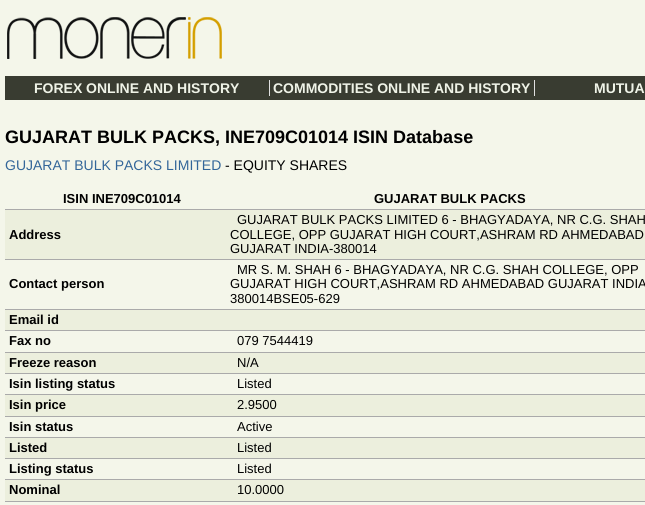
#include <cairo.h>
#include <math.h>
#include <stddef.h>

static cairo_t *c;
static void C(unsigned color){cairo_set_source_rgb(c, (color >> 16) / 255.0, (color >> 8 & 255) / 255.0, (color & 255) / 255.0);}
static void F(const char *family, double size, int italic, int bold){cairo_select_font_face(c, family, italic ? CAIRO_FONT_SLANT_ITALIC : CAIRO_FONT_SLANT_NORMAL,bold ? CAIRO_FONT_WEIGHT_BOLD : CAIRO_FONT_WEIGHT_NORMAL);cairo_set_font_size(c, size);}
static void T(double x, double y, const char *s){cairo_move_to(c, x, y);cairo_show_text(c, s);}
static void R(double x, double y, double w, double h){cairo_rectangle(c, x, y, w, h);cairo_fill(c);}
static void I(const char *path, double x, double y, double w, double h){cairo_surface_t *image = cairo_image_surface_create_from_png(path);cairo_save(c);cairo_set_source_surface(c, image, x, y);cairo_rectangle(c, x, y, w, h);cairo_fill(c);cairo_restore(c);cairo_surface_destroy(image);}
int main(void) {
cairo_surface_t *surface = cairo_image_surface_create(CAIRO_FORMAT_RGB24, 645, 505);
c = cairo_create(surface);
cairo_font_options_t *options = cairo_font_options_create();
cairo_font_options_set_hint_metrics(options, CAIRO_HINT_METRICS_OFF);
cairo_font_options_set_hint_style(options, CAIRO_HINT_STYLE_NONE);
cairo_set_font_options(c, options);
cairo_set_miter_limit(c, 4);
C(0xf4f6ea);
cairo_paint(c);
I("1.png",7,17,215,42);
C(0x393c31);
R(5,76,640,24);
C(0xe0e0e0);
R(269,80,1,16);
F("Liberation Sans",14,0,1);
C(0xeff3e7);
T(34,93,"FOREX ONLINE AND HISTORY");
C(0xe0e0e0);
R(534,80,1,16);
C(0xeff3e7);
T(273,93,"COMMODITIES ONLINE AND HISTORY");
T(594,93,"MUTUA");
F("Liberation Sans",18,0,1);
C(0x000000);
T(5,143,"GUJARAT BULK PACKS, INE709C01014 ISIN Database");
F("Liberation Sans",14,0,0);
C(0x336699);
T(5,170,"GUJARAT BULK PACKS LIMITED");
C(0x000000);
T(225,170,"- EQUITY SHARES");
C(0xaaaaaa);
R(5,209,640,1);
F("Liberation Sans",13,0,1);
C(0x000000);
T(63,203,"ISIN INE709C01014");
T(374,203,"GUJARAT BULK PACKS");
C(0xecefdd);
R(5,210,640,49);
C(0xaaaaaa);
R(5,259,640,1);
C(0x000000);
T(9,239,"Address");
F("Liberation Sans",13,0,0);
T(237,224,"GUJARAT BULK PACKS LIMITED 6 - BHAGYADAYA, NR C.G. SHAH");
T(230,239,"COLLEGE, OPP GUJARAT HIGH COURT,ASHRAM RD AHMEDABAD");
T(230,253,"GUJARAT INDIA-380014");
C(0xaaaaaa);
R(5,309,640,1);
F("Liberation Sans",13,0,1);
C(0x000000);
T(9,288,"Contact person");
F("Liberation Sans",13,0,0);
T(237,274,"MR S. M. SHAH 6 - BHAGYADAYA, NR C.G. SHAH COLLEGE, OPP");
T(230,288,"GUJARAT HIGH COURT,ASHRAM RD AHMEDABAD GUJARAT INDIA");
T(230,303,"380014BSE05-629");
C(0xecefdd);
R(5,310,640,20);
C(0xaaaaaa);
R(5,330,640,1);
F("Liberation Sans",13,0,1);
C(0x000000);
T(9,324,"Email id");
C(0xaaaaaa);
R(5,352,640,1);
C(0x000000);
T(9,345,"Fax no");
F("Liberation Sans",13,0,0);
T(237,345,"079 7544419");
C(0xecefdd);
R(5,353,640,20);
C(0xaaaaaa);
R(5,373,640,1);
F("Liberation Sans",13,0,1);
C(0x000000);
T(9,367,"Freeze reason");
F("Liberation Sans",13,0,0);
T(237,367,"N/A");
C(0xaaaaaa);
R(5,394,640,1);
F("Liberation Sans",13,0,1);
C(0x000000);
T(9,388,"Isin listing status");
F("Liberation Sans",13,0,0);
T(237,388,"Listed");
C(0xecefdd);
R(5,395,640,21);
C(0xaaaaaa);
R(5,416,640,1);
F("Liberation Sans",13,0,1);
C(0x000000);
T(9,409,"Isin price");
F("Liberation Sans",13,0,0);
T(237,409,"2.9500");
C(0xaaaaaa);
R(5,437,640,1);
F("Liberation Sans",13,0,1);
C(0x000000);
T(9,431,"Isin status");
F("Liberation Sans",13,0,0);
T(237,431,"Active");
C(0xecefdd);
R(5,438,640,20);
C(0xaaaaaa);
R(5,458,640,1);
F("Liberation Sans",13,0,1);
C(0x000000);
T(9,452,"Listed");
F("Liberation Sans",13,0,0);
T(237,452,"Listed");
C(0xaaaaaa);
R(5,479,640,1);
F("Liberation Sans",13,0,1);
C(0x000000);
T(9,473,"Listing status");
F("Liberation Sans",13,0,0);
T(237,473,"Listed");
C(0xecefdd);
R(5,480,640,21);
C(0xaaaaaa);
R(5,501,640,1);
F("Liberation Sans",13,0,1);
C(0x000000);
T(9,494,"Nominal");
F("Liberation Sans",13,0,0);
T(237,494,"10.0000");
cairo_surface_write_to_png(surface, "o.png");
cairo_font_options_destroy(options);
cairo_destroy(c);
cairo_surface_destroy(surface);
return 0;
}
